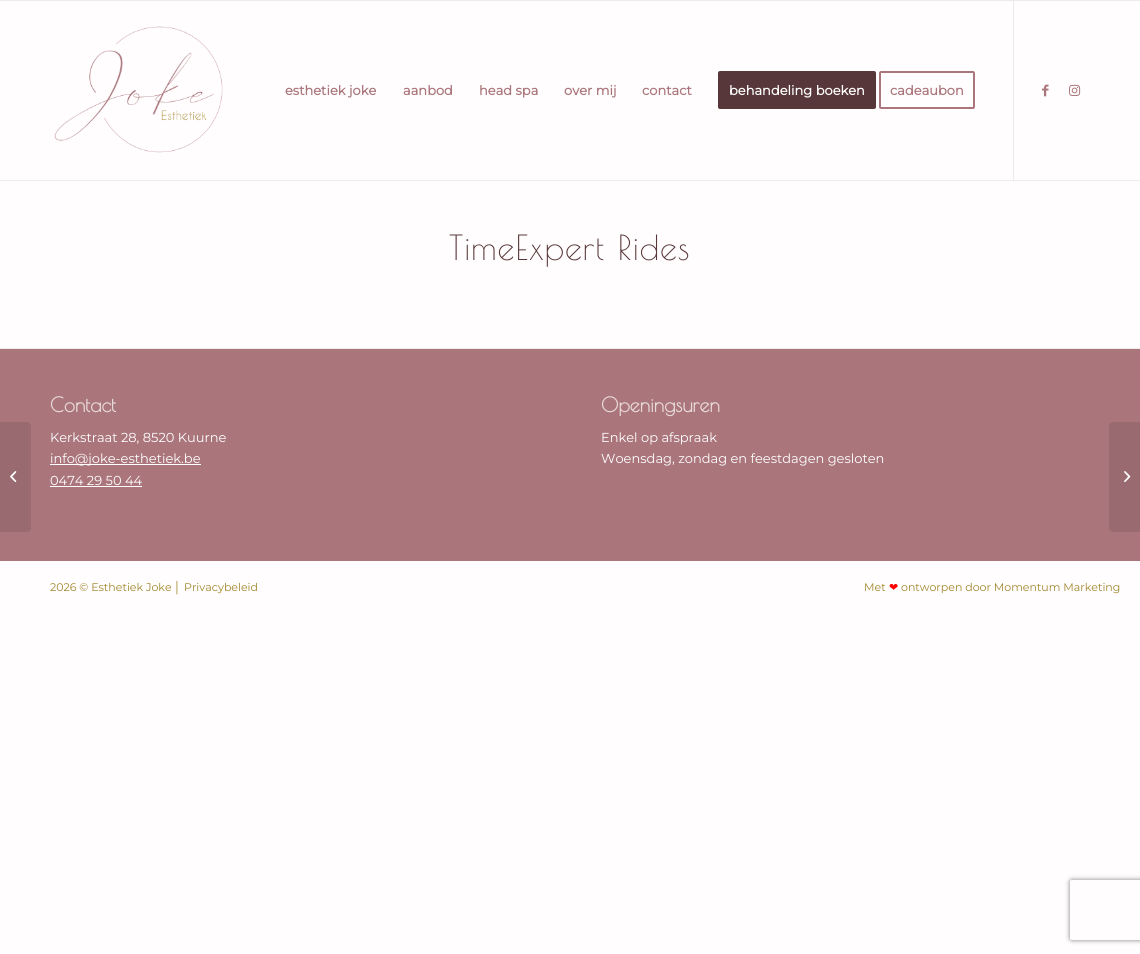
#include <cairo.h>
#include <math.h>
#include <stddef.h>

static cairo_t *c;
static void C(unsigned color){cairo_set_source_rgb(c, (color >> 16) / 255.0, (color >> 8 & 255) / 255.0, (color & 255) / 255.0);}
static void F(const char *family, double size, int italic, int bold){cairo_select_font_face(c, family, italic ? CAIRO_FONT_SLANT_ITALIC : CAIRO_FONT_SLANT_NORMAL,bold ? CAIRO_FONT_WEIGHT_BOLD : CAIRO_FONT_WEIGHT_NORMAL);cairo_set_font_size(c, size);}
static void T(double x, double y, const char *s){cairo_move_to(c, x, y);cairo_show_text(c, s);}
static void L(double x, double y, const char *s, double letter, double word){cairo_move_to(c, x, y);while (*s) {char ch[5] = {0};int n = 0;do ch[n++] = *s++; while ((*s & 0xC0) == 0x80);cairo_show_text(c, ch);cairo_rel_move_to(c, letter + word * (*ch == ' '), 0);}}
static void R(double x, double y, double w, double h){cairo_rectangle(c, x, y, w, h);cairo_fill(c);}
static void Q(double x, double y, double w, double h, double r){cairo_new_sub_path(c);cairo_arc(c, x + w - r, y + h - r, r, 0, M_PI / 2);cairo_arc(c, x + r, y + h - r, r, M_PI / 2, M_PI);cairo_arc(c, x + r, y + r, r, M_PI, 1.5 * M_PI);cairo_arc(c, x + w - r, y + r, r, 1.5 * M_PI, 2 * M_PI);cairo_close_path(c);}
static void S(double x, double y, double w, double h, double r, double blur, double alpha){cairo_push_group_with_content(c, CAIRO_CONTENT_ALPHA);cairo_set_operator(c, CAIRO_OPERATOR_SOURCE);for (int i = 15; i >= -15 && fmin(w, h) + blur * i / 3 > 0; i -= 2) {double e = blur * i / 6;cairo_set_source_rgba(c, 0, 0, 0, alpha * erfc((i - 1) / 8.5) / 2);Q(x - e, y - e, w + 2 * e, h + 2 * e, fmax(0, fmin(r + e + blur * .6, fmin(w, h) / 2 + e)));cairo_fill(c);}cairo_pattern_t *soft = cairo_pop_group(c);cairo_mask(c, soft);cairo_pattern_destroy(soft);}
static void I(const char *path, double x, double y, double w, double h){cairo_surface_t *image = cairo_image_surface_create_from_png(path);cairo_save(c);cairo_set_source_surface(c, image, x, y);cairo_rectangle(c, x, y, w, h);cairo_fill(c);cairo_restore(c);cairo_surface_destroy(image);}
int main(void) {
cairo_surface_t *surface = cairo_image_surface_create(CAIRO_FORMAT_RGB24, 1140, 954);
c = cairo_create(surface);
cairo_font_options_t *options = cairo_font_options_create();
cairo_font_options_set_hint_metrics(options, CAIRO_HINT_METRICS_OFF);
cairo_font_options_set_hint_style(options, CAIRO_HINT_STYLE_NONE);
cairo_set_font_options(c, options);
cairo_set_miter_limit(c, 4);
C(0xfffdfd);
cairo_paint(c);
C(0xebebeb);
R(0,0,1140,1);
R(0,180,1140,1);
I("1.png",54,26,169,127);
R(1013,1,1,179);
F("Montserrat",13,0,1);
C(0xaa767c);
T(285,95,"esthetiek joke");
T(403,95,"aanbod");
T(479,95,"head spa");
T(564,95,"over mij");
T(642,95,"contact");
C(0x58373a);
Q(719,72,156,36,1);
cairo_fill_preserve(c);
cairo_stroke(c);
C(0xffffff);
T(729,95,"behandeling boeken");
Q(880,72,94,36,1);
C(0xaa767c);
cairo_stroke(c);
T(890,95,"cadeaubon");
I("2.png",1042,84,7,13);
I("3.png",1069,84,12,12);
R(0,349,1140,212);
C(0x996a70);
cairo_new_path(c);
cairo_move_to(c,0,422);
cairo_line_to(c,27,422);
cairo_curve_to(c,29,422,31,424,31,426);
cairo_line_to(c,31,528);
cairo_curve_to(c,31,530,29,532,27,532);
cairo_line_to(c,0,532);
cairo_close_path(c);
cairo_fill(c);
I("4.png",10,471,7,12);
F("Poiret One",34,0,0);
C(0x58373a);
L(449,260,"TimeExpert Rides",1,0);
C(0xebebeb);
R(0,348,1140,1);
F("Poiret One",20,0,1);
C(0xe8d9d9);
T(50,412,"Contact");
F("Montserrat Thin",13,0,0);
C(0xffffff);
T(50,442,"Kerkstraat 28, 8520 Kuurne");
R(50,464,151,1);
T(50,463,"info@joke-esthetiek.be");
T(50,485,"0474 29 50 44");
R(50,486,92,1);
F("Poiret One",20,0,1);
C(0xe8d9d9);
T(601,412,"Openingsuren");
F("Montserrat Thin",13,0,0);
C(0xffffff);
T(601,442,"Enkel op afspraak");
T(601,463,"Woensdag, zondag en feestdagen gesloten");
F("Montserrat Thin",11,0,0);
C(0xa0852b);
T(50,591,"2026 © Esthetiek Joke");
F("Liberation Sans",11,0,0);
T(174,591,"│");
F("Montserrat Thin",11,0,0);
T(184,591,"Privacybeleid");
T(864,591,"Met");
F("DejaVu Sans",11,0,0);
C(0xff0000);
T(889,591,"❤");
F("Montserrat Thin",11,0,0);
C(0xa0852b);
T(901,591,"ontworpen door Momentum Marketing");
C(0x996a70);
cairo_new_path(c);
cairo_move_to(c,1113,422);
cairo_line_to(c,1140,422);
cairo_line_to(c,1140,532);
cairo_line_to(c,1113,532);
cairo_curve_to(c,1111,532,1109,530,1109,528);
cairo_line_to(c,1109,426);
cairo_curve_to(c,1109,424,1111,422,1113,422);
cairo_close_path(c);
cairo_fill(c);
I("5.png",1124,471,7,12);
cairo_save(c);
cairo_set_fill_rule(c,CAIRO_FILL_RULE_EVEN_ODD);
cairo_new_path(c);
cairo_move_to(c,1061,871);
cairo_line_to(c,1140,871);
cairo_line_to(c,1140,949);
cairo_line_to(c,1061,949);
cairo_close_path(c);
cairo_move_to(c,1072,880);
cairo_line_to(c,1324,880);
cairo_curve_to(c,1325,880,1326,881,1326,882);
cairo_line_to(c,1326,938);
cairo_curve_to(c,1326,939,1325,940,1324,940);
cairo_line_to(c,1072,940);
cairo_curve_to(c,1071,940,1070,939,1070,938);
cairo_line_to(c,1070,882);
cairo_curve_to(c,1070,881,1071,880,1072,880);
cairo_close_path(c);
cairo_clip(c);
C(0x808080);
S(1070,880,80,60,2,2.5,1);
cairo_restore(c);
cairo_surface_write_to_png(surface, "o.png");
cairo_font_options_destroy(options);
cairo_destroy(c);
cairo_surface_destroy(surface);
return 0;
}
